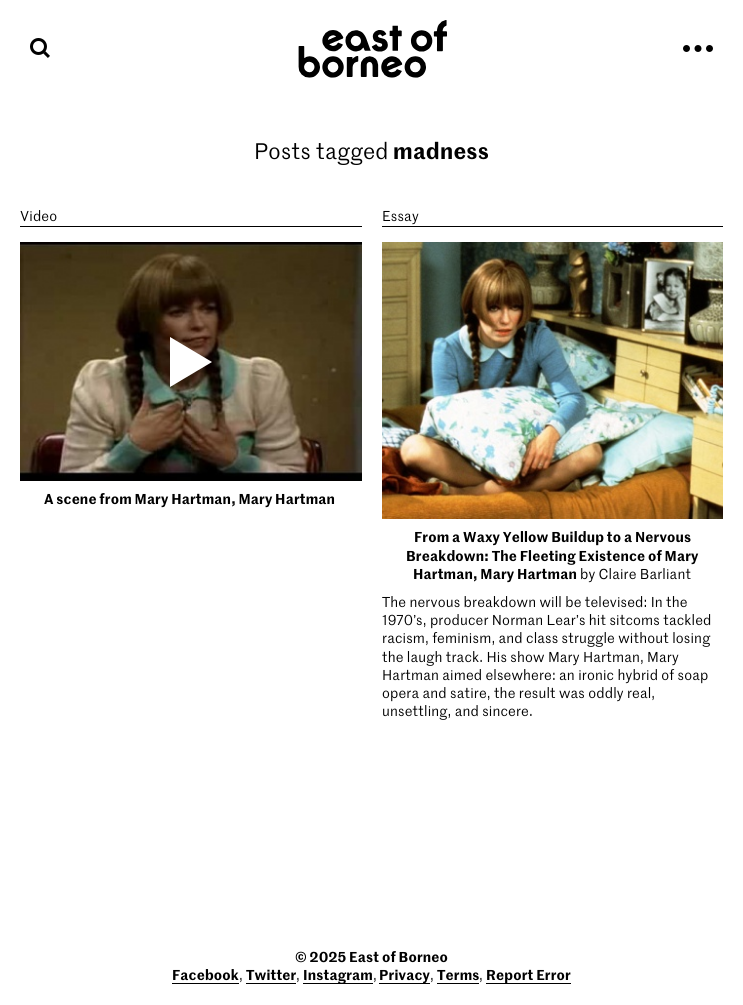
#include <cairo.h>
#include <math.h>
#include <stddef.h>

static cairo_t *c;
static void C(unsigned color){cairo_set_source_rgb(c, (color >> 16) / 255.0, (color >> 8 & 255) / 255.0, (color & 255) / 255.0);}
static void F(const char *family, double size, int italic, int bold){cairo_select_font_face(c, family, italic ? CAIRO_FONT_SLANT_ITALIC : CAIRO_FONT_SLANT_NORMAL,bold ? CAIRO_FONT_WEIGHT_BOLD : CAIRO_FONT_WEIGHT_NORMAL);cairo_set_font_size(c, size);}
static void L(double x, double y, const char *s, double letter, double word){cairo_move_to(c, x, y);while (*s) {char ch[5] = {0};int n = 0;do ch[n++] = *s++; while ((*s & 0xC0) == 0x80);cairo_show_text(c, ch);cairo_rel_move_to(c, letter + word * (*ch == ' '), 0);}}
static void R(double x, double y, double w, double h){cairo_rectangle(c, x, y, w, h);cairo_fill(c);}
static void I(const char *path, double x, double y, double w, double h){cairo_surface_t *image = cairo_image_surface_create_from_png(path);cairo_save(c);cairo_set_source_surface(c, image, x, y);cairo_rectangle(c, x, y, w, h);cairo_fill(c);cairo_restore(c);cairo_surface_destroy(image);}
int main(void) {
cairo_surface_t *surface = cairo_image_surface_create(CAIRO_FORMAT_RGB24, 743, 1005);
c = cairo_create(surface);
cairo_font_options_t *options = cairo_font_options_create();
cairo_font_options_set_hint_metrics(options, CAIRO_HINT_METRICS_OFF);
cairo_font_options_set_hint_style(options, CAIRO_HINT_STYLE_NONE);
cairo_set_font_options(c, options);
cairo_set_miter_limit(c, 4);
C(0xffffff);
cairo_paint(c);
I("1.png",30,38,20,20);
I("2.png",298,20,149,58);
I("3.png",683,45,30,7);
F("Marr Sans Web",22,0,0);
C(0x000000);
L(254,159,"Posts tagged",.25,0);
F("Marr Sans Web SemiBold",22,0,0);
L(393,159,"madness",.25,0);
R(20,226,342,1);
F("Marr Sans Web",14,0,0);
L(20,221,"Video",.15,0);
I("4.png",20,242,342,239);
C(0xffffff);
cairo_new_path(c);
cairo_move_to(c,170,387);
cairo_line_to(c,170,337);
cairo_line_to(c,212,362);
cairo_close_path(c);
cairo_fill(c);
F("Marr Sans Web SemiBold",14,0,0);
C(0x000000);
L(44,504,"A scene from Mary Hartman, Mary Hartman",.15,0);
R(382,226,341,1);
F("Marr Sans Web",14,0,0);
L(382,221,"Essay",.15,0);
I("5.png",382,242,341,277);
F("Marr Sans Web SemiBold",14,0,0);
L(414,542,"From a Waxy Yellow Buildup to a Nervous",.15,0);
L(406,561,"Breakdown: The Fleeting Existence of Mary",.15,0);
L(413,579,"Hartman, Mary Hartman",.15,0);
F("Marr Sans Web",14,0,0);
L(580,579,"by Claire Barliant",.15,0);
L(382,607,"The nervous breakdown will be televised: In the",.15,0);
L(382,625,"1970’s, producer Norman Lear’s hit sitcoms tackled",.15,0);
L(382,643,"racism, feminism, and class struggle without losing",.15,0);
L(382,662,"the laugh track. His show Mary Hartman, Mary",.15,0);
L(382,680,"Hartman aimed elsewhere: an ironic hybrid of soap",.15,0);
L(382,698,"opera and satire, the result was oddly real,",.15,0);
L(382,716,"unsettling, and sincere.",.15,0);
F("Marr Sans Web SemiBold",14,0,0);
L(295,962,"© 2025 East of Borneo",.15,0);
L(172,980,"Facebook",.15,0);
F("Marr Sans Web",14,0,0);
L(239,980,",",.15,0);
R(172,983,67,1);
F("Marr Sans Web SemiBold",14,0,0);
L(246,980,"Twitter",.15,0);
F("Marr Sans Web",14,0,0);
L(296,980,",",.15,0);
R(246,983,50,1);
R(303,983,70,1);
F("Marr Sans Web SemiBold",14,0,0);
L(303,980,"Instagram",.15,0);
F("Marr Sans Web",14,0,0);
L(373,980,",",.15,0);
R(379,983,51,1);
F("Marr Sans Web SemiBold",14,0,0);
L(379,980,"Privacy",.15,0);
F("Marr Sans Web",14,0,0);
L(430,980,",",.15,0);
F("Marr Sans Web SemiBold",14,0,0);
L(437,980,"Terms",.15,0);
F("Marr Sans Web",14,0,0);
L(479,980,",",.15,0);
R(437,983,42,1);
R(486,983,85,1);
F("Marr Sans Web SemiBold",14,0,0);
L(486,980,"Report Error",.15,0);
cairo_surface_write_to_png(surface, "o.png");
cairo_font_options_destroy(options);
cairo_destroy(c);
cairo_surface_destroy(surface);
return 0;
}
